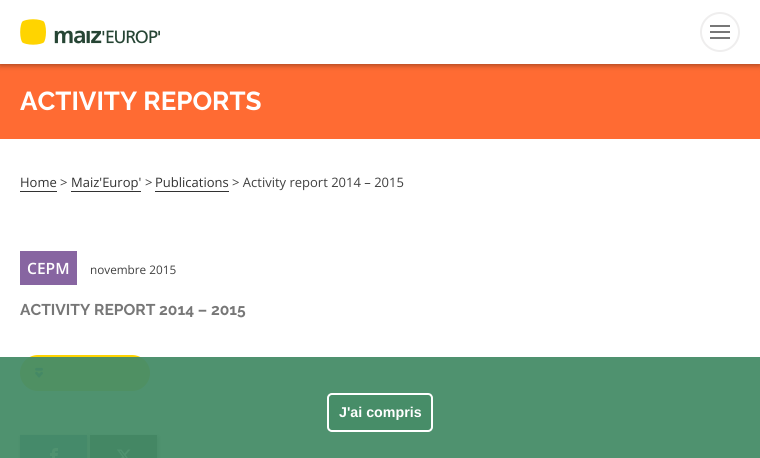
#include <cairo.h>
#include <math.h>
#include <stddef.h>

static cairo_t *c;
static void C(unsigned color){cairo_set_source_rgb(c, (color >> 16) / 255.0, (color >> 8 & 255) / 255.0, (color & 255) / 255.0);}
static void F(const char *family, double size, int italic, int bold){cairo_select_font_face(c, family, italic ? CAIRO_FONT_SLANT_ITALIC : CAIRO_FONT_SLANT_NORMAL,bold ? CAIRO_FONT_WEIGHT_BOLD : CAIRO_FONT_WEIGHT_NORMAL);cairo_set_font_size(c, size);}
static void T(double x, double y, const char *s){cairo_move_to(c, x, y);cairo_show_text(c, s);}
static void R(double x, double y, double w, double h){cairo_rectangle(c, x, y, w, h);cairo_fill(c);}
static void Q(double x, double y, double w, double h, double r){cairo_new_sub_path(c);cairo_arc(c, x + w - r, y + h - r, r, 0, M_PI / 2);cairo_arc(c, x + r, y + h - r, r, M_PI / 2, M_PI);cairo_arc(c, x + r, y + r, r, M_PI, 1.5 * M_PI);cairo_arc(c, x + w - r, y + r, r, 1.5 * M_PI, 2 * M_PI);cairo_close_path(c);}
static void S(double x, double y, double w, double h, double r, double blur, double alpha){cairo_push_group_with_content(c, CAIRO_CONTENT_ALPHA);cairo_set_operator(c, CAIRO_OPERATOR_SOURCE);for (int i = 15; i >= -15 && fmin(w, h) + blur * i / 3 > 0; i -= 2) {double e = blur * i / 6;cairo_set_source_rgba(c, 0, 0, 0, alpha * erfc((i - 1) / 8.5) / 2);Q(x - e, y - e, w + 2 * e, h + 2 * e, fmax(0, fmin(r + e + blur * .6, fmin(w, h) / 2 + e)));cairo_fill(c);}cairo_pattern_t *soft = cairo_pop_group(c);cairo_mask(c, soft);cairo_pattern_destroy(soft);}
static void I(const char *path, double x, double y, double w, double h){cairo_surface_t *image = cairo_image_surface_create_from_png(path);cairo_save(c);cairo_set_source_surface(c, image, x, y);cairo_rectangle(c, x, y, w, h);cairo_fill(c);cairo_restore(c);cairo_surface_destroy(image);}
int main(void) {
cairo_surface_t *surface = cairo_image_surface_create(CAIRO_FORMAT_RGB24, 760, 458);
c = cairo_create(surface);
cairo_font_options_t *options = cairo_font_options_create();
cairo_font_options_set_hint_metrics(options, CAIRO_HINT_METRICS_OFF);
cairo_font_options_set_hint_style(options, CAIRO_HINT_STYLE_NONE);
cairo_set_font_options(c, options);
cairo_set_miter_limit(c, 4);
C(0xffffff);
cairo_paint(c);
C(0xff6b33);
R(0,64,760,75);
C(0x000000);
S(0,0,760,64,0,3.5,.5);
C(0xffffff);
R(0,0,760,64);
I("1.png",20,19,140,26);
cairo_arc(c,720,32,19,0,2 * M_PI);
C(0xefeeee);
cairo_stroke(c);
C(0x777777);
R(710,31,20,2);
R(710,25,20,2);
R(710,37,20,2);
F("Raleway Thin",26,0,0);
C(0xffffff);
T(20,110,"ACTIVITY REPORTS");
F("Open Sans",13,0,0);
C(0x323232);
T(20,187,"Home");
R(20,191,37,1);
C(0x414141);
T(60,187,">");
C(0x323232);
T(71,187,"Maiz'Europ'");
R(71,191,70,1);
C(0x414141);
T(145,187,">");
C(0x323232);
T(155,187,"Publications");
R(155,191,74,1);
C(0x414141);
T(232,187,"> Activity report 2014 – 2015");
C(0x8765a1);
R(20,251,57,34);
F("Open Sans SemiBold",15.6,0,0);
C(0xffffff);
T(27,274,"CEPM");
F("Open Sans",11.75,0,0);
C(0x414141);
T(90,274,"novembre 2015");
F("Raleway Thin",15.6,0,0);
C(0x777777);
T(20,315,"ACTIVITY REPORT 2014 – 2015");
C(0xffd300);
Q(20,355,130,36,18);
cairo_fill(c);
I("2.png",35,367,8,11);
C(0x000000);
S(21,437,67,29,0,2.5,.51);
C(0x2d5f9a);
R(20,435,67,23);
I("3.png",50,448,8,10);
C(0x000000);
S(91,437,67,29,0,2.5,.51);
C(0x1a1a1a);
R(90,435,67,23);
I("4.png",117,449,14,9);
cairo_set_source_rgba(c,0.278,0.553,0.408,0.95);
R(0,357,760,101);
C(0x478d68);
Q(328,394,104,37,4);
cairo_fill_preserve(c);
C(0xffffff);
cairo_stroke(c);
F("Liberation Sans",14.25,0,1);
T(339,417,"J'ai compris");
cairo_surface_write_to_png(surface, "o.png");
cairo_font_options_destroy(options);
cairo_destroy(c);
cairo_surface_destroy(surface);
return 0;
}
